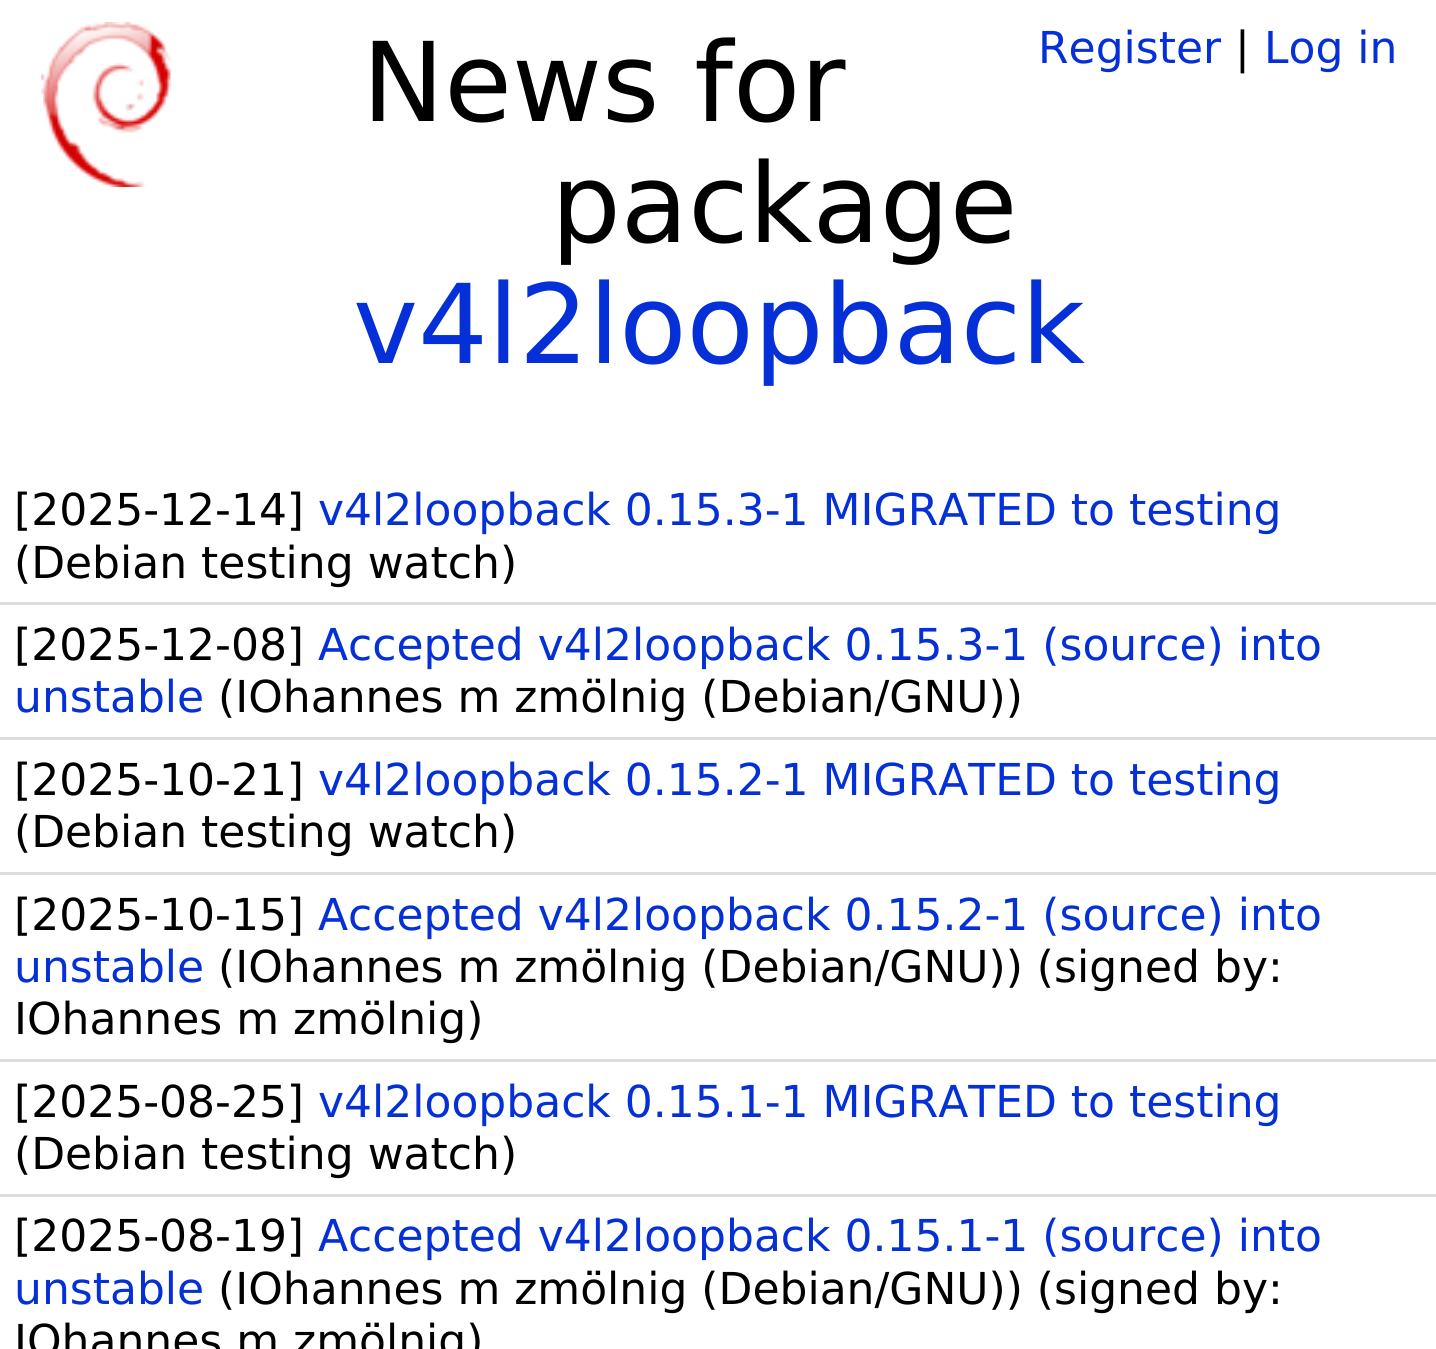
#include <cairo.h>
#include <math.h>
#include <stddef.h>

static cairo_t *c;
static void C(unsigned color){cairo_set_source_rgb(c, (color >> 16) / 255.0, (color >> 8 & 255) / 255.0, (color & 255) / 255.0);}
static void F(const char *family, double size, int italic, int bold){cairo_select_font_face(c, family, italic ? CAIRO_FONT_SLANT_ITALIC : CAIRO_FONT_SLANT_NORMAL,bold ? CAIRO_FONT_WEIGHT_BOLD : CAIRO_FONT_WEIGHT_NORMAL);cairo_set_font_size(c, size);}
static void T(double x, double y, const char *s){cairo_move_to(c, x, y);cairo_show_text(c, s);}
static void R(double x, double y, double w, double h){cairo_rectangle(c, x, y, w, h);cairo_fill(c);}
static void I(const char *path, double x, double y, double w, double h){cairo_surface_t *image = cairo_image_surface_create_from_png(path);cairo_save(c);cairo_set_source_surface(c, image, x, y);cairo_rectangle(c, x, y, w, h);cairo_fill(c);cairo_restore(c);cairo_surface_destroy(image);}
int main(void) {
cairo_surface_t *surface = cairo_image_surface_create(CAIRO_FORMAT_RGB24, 1436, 1349);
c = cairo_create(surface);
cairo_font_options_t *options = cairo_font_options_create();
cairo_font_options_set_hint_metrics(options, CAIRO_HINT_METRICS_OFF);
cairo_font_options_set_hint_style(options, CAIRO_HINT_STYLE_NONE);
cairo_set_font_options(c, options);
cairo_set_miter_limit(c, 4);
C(0xffffff);
cairo_paint(c);
I("1.png",41,22,130,165);
F("DejaVu Sans",110,0,0);
C(0x000000);
T(362,121,"News for");
T(551,242,"package");
C(0x0530d7);
T(353,363,"v4l2loopback");
F("DejaVu Sans",44,0,0);
T(1038,63,"Register");
C(0x000000);
T(1235,63,"|");
C(0x0530d7);
T(1264,63,"Log in");
C(0xdddddd);
R(0,602,1436,3);
C(0x000000);
T(14,525,"[2025-12-14]");
C(0x0530d7);
T(318,525,"v4l2loopback 0.15.3-1 MIGRATED to testing");
C(0x000000);
T(14,578,"(Debian testing watch)");
C(0xdddddd);
R(0,737,1436,3);
C(0x000000);
T(14,660,"[2025-12-08]");
C(0x0530d7);
T(318,660,"Accepted v4l2loopback 0.15.3-1 (source) into");
T(14,712,"unstable");
C(0x000000);
T(218,712,"(IOhannes m zmölnig (Debian/GNU))");
C(0xdddddd);
R(0,872,1436,3);
C(0x000000);
T(14,795,"[2025-10-21]");
C(0x0530d7);
T(318,795,"v4l2loopback 0.15.2-1 MIGRATED to testing");
C(0x000000);
T(14,847,"(Debian testing watch)");
C(0xdddddd);
R(0,1059,1436,3);
C(0x000000);
T(14,930,"[2025-10-15]");
C(0x0530d7);
T(318,930,"Accepted v4l2loopback 0.15.2-1 (source) into");
T(14,982,"unstable");
C(0x000000);
T(218,982,"(IOhannes m zmölnig (Debian/GNU)) (signed by:");
T(14,1034,"IOhannes m zmölnig)");
T(14,1117,"[2025-08-25]");
C(0x0530d7);
T(318,1117,"v4l2loopback 0.15.1-1 MIGRATED to testing");
C(0x000000);
T(14,1169,"(Debian testing watch)");
C(0xdddddd);
R(0,1194,1436,3);
C(0x000000);
T(14,1251,"[2025-08-19]");
C(0x0530d7);
T(318,1251,"Accepted v4l2loopback 0.15.1-1 (source) into");
T(14,1304,"unstable");
C(0x000000);
T(218,1304,"(IOhannes m zmölnig (Debian/GNU)) (signed by:");
T(14,1356,"IOhannes m zmölnig)");
cairo_surface_write_to_png(surface, "o.png");
cairo_font_options_destroy(options);
cairo_destroy(c);
cairo_surface_destroy(surface);
return 0;
}
